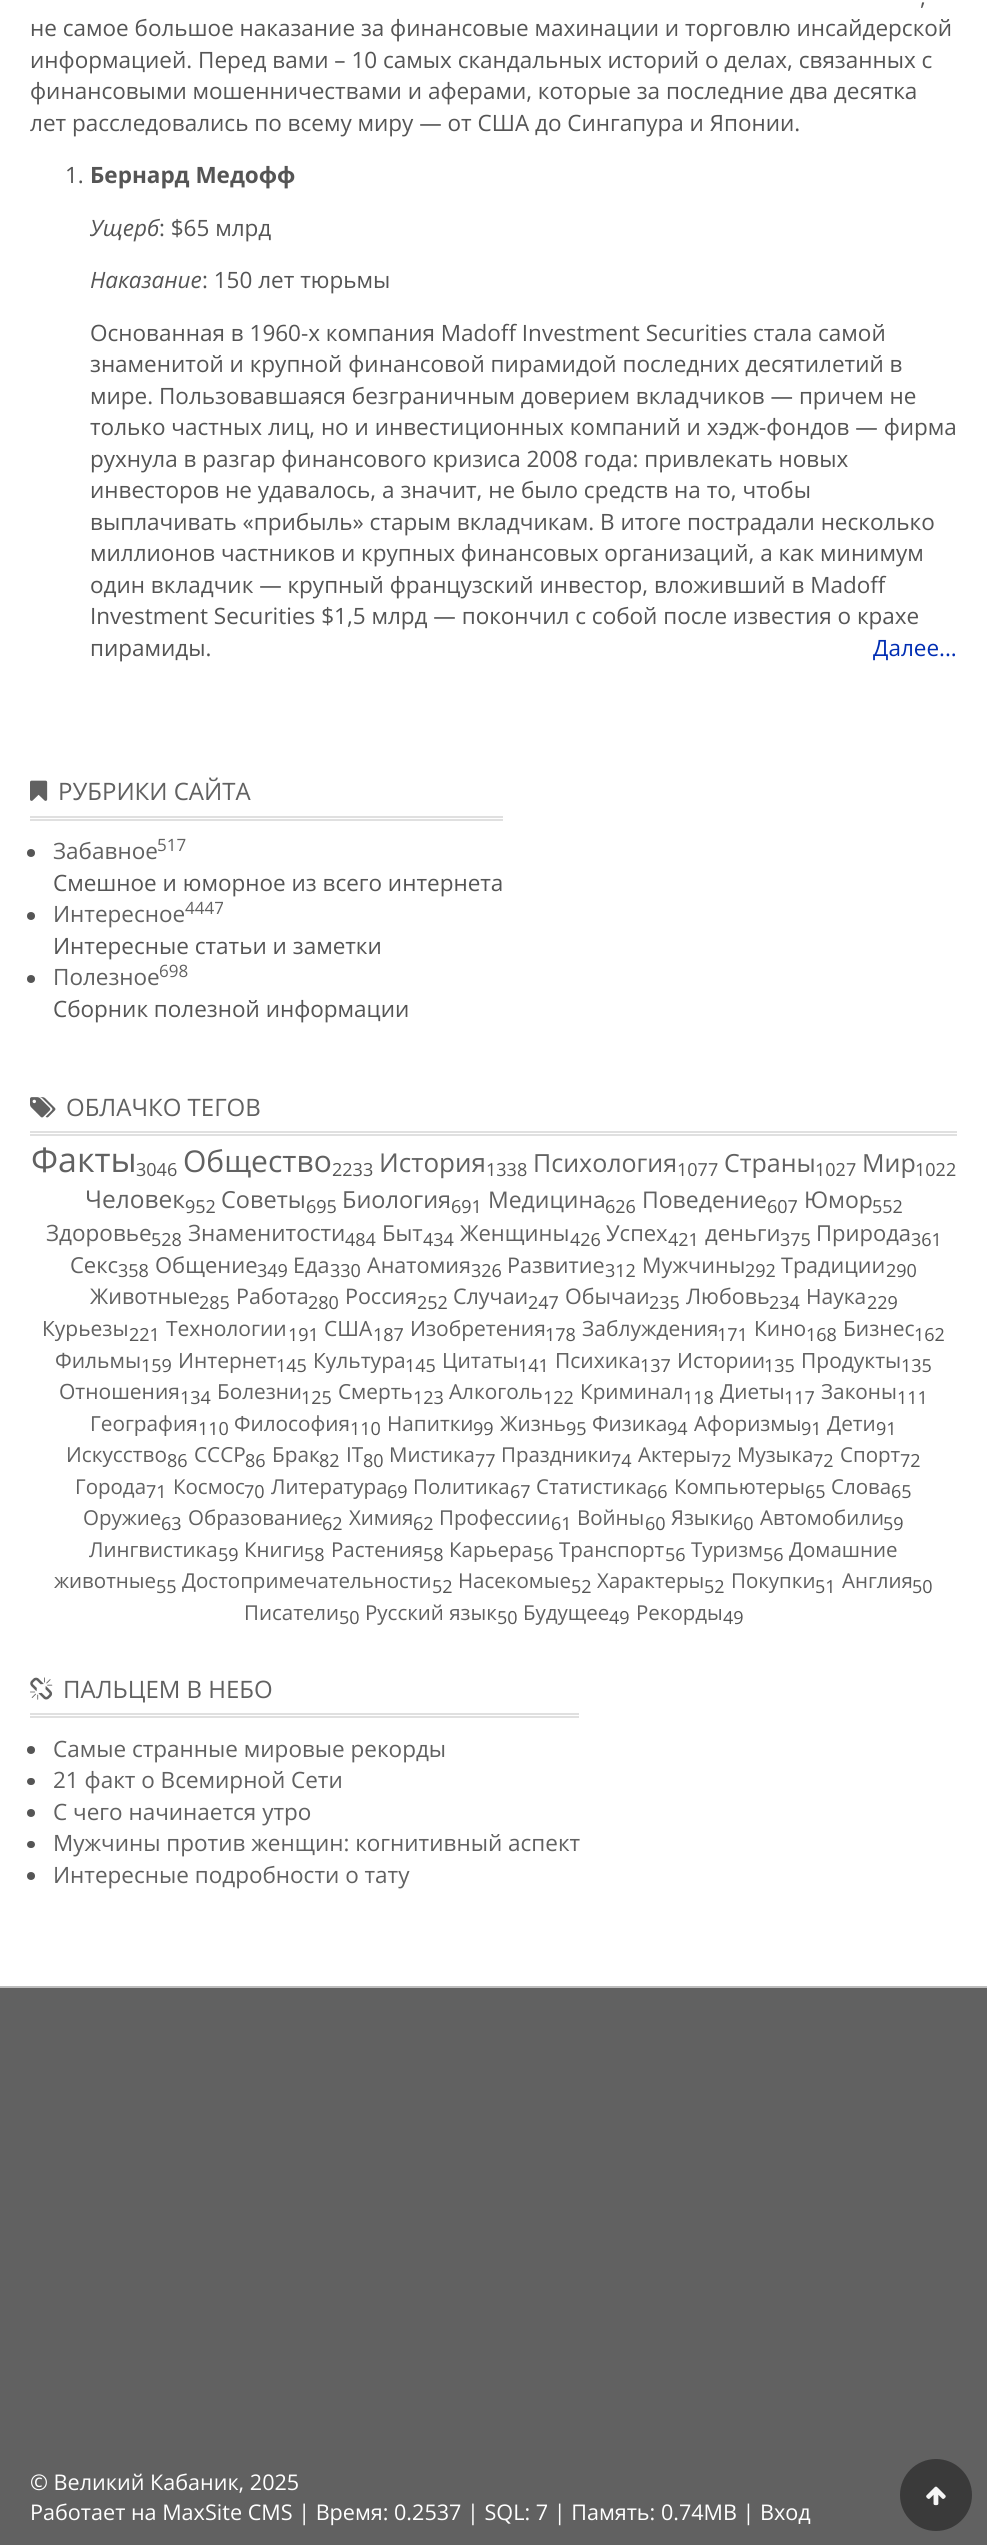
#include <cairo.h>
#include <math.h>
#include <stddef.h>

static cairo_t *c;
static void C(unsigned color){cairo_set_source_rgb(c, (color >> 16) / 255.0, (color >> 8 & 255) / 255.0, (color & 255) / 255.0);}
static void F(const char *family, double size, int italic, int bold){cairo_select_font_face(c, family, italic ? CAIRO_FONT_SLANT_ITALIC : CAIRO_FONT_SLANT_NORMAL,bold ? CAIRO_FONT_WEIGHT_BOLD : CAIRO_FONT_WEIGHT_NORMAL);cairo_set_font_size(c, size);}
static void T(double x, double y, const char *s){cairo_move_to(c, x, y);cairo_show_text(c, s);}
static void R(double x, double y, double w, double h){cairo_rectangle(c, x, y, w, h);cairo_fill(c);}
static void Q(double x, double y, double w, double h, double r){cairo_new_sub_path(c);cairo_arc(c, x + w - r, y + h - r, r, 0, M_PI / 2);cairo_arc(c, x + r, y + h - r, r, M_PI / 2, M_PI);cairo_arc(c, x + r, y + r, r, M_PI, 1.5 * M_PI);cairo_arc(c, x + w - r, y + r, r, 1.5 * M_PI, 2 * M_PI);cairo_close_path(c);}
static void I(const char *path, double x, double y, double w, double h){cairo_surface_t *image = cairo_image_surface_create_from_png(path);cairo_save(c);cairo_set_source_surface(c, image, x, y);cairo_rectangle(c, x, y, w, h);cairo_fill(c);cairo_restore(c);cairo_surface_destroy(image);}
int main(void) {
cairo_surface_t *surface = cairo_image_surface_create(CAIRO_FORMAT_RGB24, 987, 2545);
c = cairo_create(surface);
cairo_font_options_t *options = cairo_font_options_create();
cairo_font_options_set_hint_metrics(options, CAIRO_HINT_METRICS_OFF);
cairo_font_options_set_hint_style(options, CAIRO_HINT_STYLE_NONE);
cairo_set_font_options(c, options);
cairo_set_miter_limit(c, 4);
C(0xffffff);
cairo_paint(c);
F("Open Sans",22.5,0,0);
C(0x555555);
T(920,5,",");
T(30,36,"не самое большое наказание за финансовые махинации и торговлю инсайдерской");
T(30,68,"информацией. Перед вами – 10 самых скандальных историй о делах, связанных с");
T(30,99,"финансовыми мошенничествами и аферами, которые за последние два десятка");
T(30,131,"лет расследовались по всему миру — от США до Сингапура и Японии.");
T(65,183,"1.");
F("Open Sans",22.5,0,1);
T(90,183,"Бернард Медофф");
F("Open Sans",22.5,1,0);
T(90,236,"Ущерб");
F("Open Sans",22.5,0,0);
T(159,236,": $65 млрд");
F("Open Sans",22.5,1,0);
T(90,288,"Наказание");
F("Open Sans",22.5,0,0);
T(202,288,": 150 лет тюрьмы");
T(90,341,"Основанная в 1960-х компания Madoff Investment Securities стала самой");
T(90,372,"знаменитой и крупной финансовой пирамидой последних десятилетий в");
T(90,404,"мире. Пользовавшаяся безграничным доверием вкладчиков — причем не");
T(90,435,"только частных лиц, но и инвестиционных компаний и хэдж-фондов — фирма");
T(90,467,"рухнула в разгар финансового кризиса 2008 года: привлекать новых");
T(90,498,"инвесторов не удавалось, а значит, не было средств на то, чтобы");
T(90,530,"выплачивать «прибыль» старым вкладчикам. В итоге пострадали несколько");
T(90,561,"миллионов частников и крупных финансовых организаций, а как минимум");
T(90,593,"один вкладчик — крупный французский инвестор, вложивший в Madoff");
T(90,624,"Investment Securities $1,5 млрд — покончил с собой после известия о крахе");
T(90,656,"пирамиды.");
C(0x002db3);
T(873,656,"Далее...");
C(0xe0e0e0);
R(30,816,473,2);
R(30,819,473,2);
I("1.png",30,780,18,21);
F("Open Sans",24,0,0);
C(0x616161);
T(58,800,"РУБРИКИ САЙТА");
C(0x555555);
cairo_new_path(c);
cairo_arc(c,31,853,4,0,2 * M_PI);
cairo_fill(c);
F("Open Sans",22.5,0,0);
C(0x616161);
T(53,859,"Забавное");
F("Open Sans",17,0,0);
T(157,851,"517");
F("Open Sans",22.5,0,0);
C(0x555555);
T(53,891,"Смешное и юморное из всего интернета");
cairo_new_path(c);
cairo_arc(c,31,916,4,0,2 * M_PI);
cairo_fill(c);
C(0x616161);
T(53,922,"Интересное");
F("Open Sans",17,0,0);
T(185,914,"4447");
F("Open Sans",22.5,0,0);
C(0x555555);
T(53,954,"Интересные статьи и заметки");
cairo_new_path(c);
cairo_arc(c,31,979,4,0,2 * M_PI);
cairo_fill(c);
C(0x616161);
T(53,985,"Полезное");
F("Open Sans",17,0,0);
T(159,977,"698");
F("Open Sans",22.5,0,0);
C(0x555555);
T(53,1017,"Сборник полезной информации");
C(0xe0e0e0);
R(30,1131,927,2);
R(30,1134,927,2);
I("2.png",30,1097,26,21);
F("Open Sans",24,0,0);
C(0x616161);
T(66,1116,"ОБЛАЧКО ТЕГОВ");
F("Open Sans",34,0,0);
T(31,1172,"Факты");
F("Open Sans",18,0,0);
C(0x555555);
T(136,1176,"3046");
F("Open Sans",30,0,0);
C(0x616161);
T(183,1172,"Общество");
F("Open Sans",18,0,0);
C(0x555555);
T(332,1176,"2233");
F("Open Sans",26,0,0);
C(0x616161);
T(379,1172,"История");
F("Open Sans",18,0,0);
C(0x555555);
T(486,1176,"1338");
F("Open Sans",25,0,0);
C(0x616161);
T(533,1172,"Психология");
F("Open Sans",18,0,0);
C(0x555555);
T(677,1176,"1077");
F("Open Sans",25,0,0);
C(0x616161);
T(724,1172,"Страны");
F("Open Sans",18,0,0);
C(0x555555);
T(815,1176,"1027");
F("Open Sans",25,0,0);
C(0x616161);
T(862,1172,"Мир");
F("Open Sans",18,0,0);
C(0x555555);
T(915,1176,"1022");
F("Open Sans",24.5,0,0);
C(0x616161);
T(85,1208,"Человек");
F("Open Sans",18,0,0);
C(0x555555);
T(185,1213,"952");
F("Open Sans",23.5,0,0);
C(0x616161);
T(221,1208,"Советы");
F("Open Sans",18,0,0);
C(0x555555);
T(306,1213,"695");
F("Open Sans",23.5,0,0);
C(0x616161);
T(342,1208,"Биология");
F("Open Sans",18,0,0);
C(0x555555);
T(451,1213,"691");
F("Open Sans",23,0,0);
C(0x616161);
T(488,1208,"Медицина");
F("Open Sans",18,0,0);
C(0x555555);
T(605,1213,"626");
F("Open Sans",23,0,0);
C(0x616161);
T(642,1208,"Поведение");
F("Open Sans",18,0,0);
C(0x555555);
T(767,1213,"607");
F("Open Sans",23,0,0);
C(0x616161);
T(804,1208,"Юмор");
F("Open Sans",18,0,0);
C(0x555555);
T(872,1213,"552");
F("Open Sans",22.5,0,0);
C(0x616161);
T(46,1241,"Здоровье");
F("Open Sans",18,0,0);
C(0x555555);
T(151,1246,"528");
F("Open Sans",22.5,0,0);
C(0x616161);
T(188,1241,"Знаменитости");
F("Open Sans",18,0,0);
C(0x555555);
T(345,1246,"484");
F("Open Sans",22,0,0);
C(0x616161);
T(382,1241,"Быт");
F("Open Sans",18,0,0);
C(0x555555);
T(423,1246,"434");
F("Open Sans",22,0,0);
C(0x616161);
T(460,1241,"Женщины");
F("Open Sans",18,0,0);
C(0x555555);
T(570,1246,"426");
F("Open Sans",22,0,0);
C(0x616161);
T(606,1241,"Успех");
F("Open Sans",18,0,0);
C(0x555555);
T(668,1246,"421");
F("Open Sans",22,0,0);
C(0x616161);
T(705,1241,"деньги");
F("Open Sans",18,0,0);
C(0x555555);
T(780,1246,"375");
F("Open Sans",22,0,0);
C(0x616161);
T(816,1241,"Природа");
F("Open Sans",18,0,0);
C(0x555555);
T(911,1246,"361");
F("Open Sans",22,0,0);
C(0x616161);
T(70,1273,"Секс");
F("Open Sans",18,0,0);
C(0x555555);
T(118,1277,"358");
F("Open Sans",22,0,0);
C(0x616161);
T(155,1273,"Общение");
F("Open Sans",18,0,0);
C(0x555555);
T(257,1277,"349");
F("Open Sans",21.6,0,0);
C(0x616161);
T(293,1273,"Еда");
F("Open Sans",18,0,0);
C(0x555555);
T(330,1277,"330");
F("Open Sans",21.6,0,0);
C(0x616161);
T(367,1273,"Анатомия");
F("Open Sans",18,0,0);
C(0x555555);
T(471,1277,"326");
F("Open Sans",21.6,0,0);
C(0x616161);
T(507,1273,"Развитие");
F("Open Sans",18,0,0);
C(0x555555);
T(605,1277,"312");
F("Open Sans",21.6,0,0);
C(0x616161);
T(642,1273,"Мужчины");
F("Open Sans",18,0,0);
C(0x555555);
T(745,1277,"292");
F("Open Sans",21.6,0,0);
C(0x616161);
T(781,1273,"Традиции");
F("Open Sans",18,0,0);
C(0x555555);
T(886,1277,"290");
F("Open Sans",21.6,0,0);
C(0x616161);
T(90,1304,"Животные");
F("Open Sans",18,0,0);
C(0x555555);
T(199,1309,"285");
F("Open Sans",21.5,0,0);
C(0x616161);
T(236,1304,"Работа");
F("Open Sans",18,0,0);
C(0x555555);
T(308,1309,"280");
F("Open Sans",21.5,0,0);
C(0x616161);
T(345,1304,"Россия");
F("Open Sans",18,0,0);
C(0x555555);
T(417,1309,"252");
F("Open Sans",21.5,0,0);
C(0x616161);
T(453,1304,"Случаи");
F("Open Sans",18,0,0);
C(0x555555);
T(528,1309,"247");
F("Open Sans",21.5,0,0);
C(0x616161);
T(565,1304,"Обычаи");
F("Open Sans",18,0,0);
C(0x555555);
T(649,1309,"235");
F("Open Sans",21.5,0,0);
C(0x616161);
T(686,1304,"Любовь");
F("Open Sans",18,0,0);
C(0x555555);
T(769,1309,"234");
F("Open Sans",21,0,0);
C(0x616161);
T(806,1304,"Наука");
F("Open Sans",18,0,0);
C(0x555555);
T(867,1309,"229");
F("Open Sans",21,0,0);
C(0x616161);
T(42,1336,"Курьезы");
F("Open Sans",18,0,0);
C(0x555555);
T(129,1341,"221");
F("Open Sans",21,0,0);
C(0x616161);
T(166,1336,"Технологии");
F("Open Sans",18,0,0);
C(0x555555);
T(288,1341,"191");
F("Open Sans",21,0,0);
C(0x616161);
T(324,1336,"США");
F("Open Sans",18,0,0);
C(0x555555);
T(373,1341,"187");
F("Open Sans",21,0,0);
C(0x616161);
T(410,1336,"Изобретения");
F("Open Sans",18,0,0);
C(0x555555);
T(545,1341,"178");
F("Open Sans",21,0,0);
C(0x616161);
T(582,1336,"Заблуждения");
F("Open Sans",18,0,0);
C(0x555555);
T(717,1341,"171");
F("Open Sans",21,0,0);
C(0x616161);
T(754,1336,"Кино");
F("Open Sans",18,0,0);
C(0x555555);
T(806,1341,"168");
F("Open Sans",21,0,0);
C(0x616161);
T(843,1336,"Бизнес");
F("Open Sans",18,0,0);
C(0x555555);
T(914,1341,"162");
F("Open Sans",21,0,0);
C(0x616161);
T(55,1368,"Фильмы");
F("Open Sans",18,0,0);
C(0x555555);
T(141,1372,"159");
F("Open Sans",21,0,0);
C(0x616161);
T(178,1368,"Интернет");
F("Open Sans",18,0,0);
C(0x555555);
T(276,1372,"145");
F("Open Sans",21,0,0);
C(0x616161);
T(313,1368,"Культура");
F("Open Sans",18,0,0);
C(0x555555);
T(405,1372,"145");
F("Open Sans",21,0,0);
C(0x616161);
T(442,1368,"Цитаты");
F("Open Sans",18,0,0);
C(0x555555);
T(518,1372,"141");
F("Open Sans",21,0,0);
C(0x616161);
T(555,1368,"Психика");
F("Open Sans",18,0,0);
C(0x555555);
T(640,1372,"137");
F("Open Sans",21,0,0);
C(0x616161);
T(677,1368,"Истории");
F("Open Sans",18,0,0);
C(0x555555);
T(764,1372,"135");
F("Open Sans",21,0,0);
C(0x616161);
T(801,1368,"Продукты");
F("Open Sans",18,0,0);
C(0x555555);
T(901,1372,"135");
F("Open Sans",21,0,0);
C(0x616161);
T(59,1399,"Отношения");
F("Open Sans",18,0,0);
C(0x555555);
T(180,1404,"134");
F("Open Sans",20.75,0,0);
C(0x616161);
T(217,1399,"Болезни");
F("Open Sans",18,0,0);
C(0x555555);
T(301,1404,"125");
F("Open Sans",20.75,0,0);
C(0x616161);
T(338,1399,"Смерть");
F("Open Sans",18,0,0);
C(0x555555);
T(413,1404,"123");
F("Open Sans",20.75,0,0);
C(0x616161);
T(449,1399,"Алкоголь");
F("Open Sans",18,0,0);
C(0x555555);
T(543,1404,"122");
F("Open Sans",20.75,0,0);
C(0x616161);
T(580,1399,"Криминал");
F("Open Sans",18,0,0);
C(0x555555);
T(683,1404,"118");
F("Open Sans",20.75,0,0);
C(0x616161);
T(720,1399,"Диеты");
F("Open Sans",18,0,0);
C(0x555555);
T(784,1404,"117");
F("Open Sans",20.75,0,0);
C(0x616161);
T(821,1399,"Законы");
F("Open Sans",18,0,0);
C(0x555555);
T(897,1404,"111");
F("Open Sans",20.75,0,0);
C(0x616161);
T(90,1431,"География");
F("Open Sans",18,0,0);
C(0x555555);
T(198,1435,"110");
F("Open Sans",20.75,0,0);
C(0x616161);
T(234,1431,"Философия");
F("Open Sans",18,0,0);
C(0x555555);
T(350,1435,"110");
F("Open Sans",20.75,0,0);
C(0x616161);
T(387,1431,"Напитки");
F("Open Sans",18,0,0);
C(0x555555);
T(473,1435,"99");
F("Open Sans",20.75,0,0);
C(0x616161);
T(500,1431,"Жизнь");
F("Open Sans",18,0,0);
C(0x555555);
T(566,1435,"95");
F("Open Sans",20.75,0,0);
C(0x616161);
T(592,1431,"Физика");
F("Open Sans",18,0,0);
C(0x555555);
T(667,1435,"94");
F("Open Sans",20.75,0,0);
C(0x616161);
T(694,1431,"Афоризмы");
F("Open Sans",18,0,0);
C(0x555555);
T(801,1435,"91");
F("Open Sans",20.75,0,0);
C(0x616161);
T(827,1431,"Дети");
F("Open Sans",18,0,0);
C(0x555555);
T(876,1435,"91");
F("Open Sans",20.75,0,0);
C(0x616161);
T(66,1462,"Искусство");
F("Open Sans",18,0,0);
C(0x555555);
T(167,1467,"86");
F("Open Sans",20.75,0,0);
C(0x616161);
T(194,1462,"СССР");
F("Open Sans",18,0,0);
C(0x555555);
T(245,1467,"86");
F("Open Sans",20.75,0,0);
C(0x616161);
T(272,1462,"Брак");
F("Open Sans",18,0,0);
C(0x555555);
T(319,1467,"82");
F("Open Sans",20.75,0,0);
C(0x616161);
T(346,1462,"IT");
F("Open Sans",18,0,0);
C(0x555555);
T(363,1467,"80");
F("Open Sans",20.5,0,0);
C(0x616161);
T(389,1462,"Мистика");
F("Open Sans",18,0,0);
C(0x555555);
T(475,1467,"77");
F("Open Sans",20.5,0,0);
C(0x616161);
T(501,1462,"Праздники");
F("Open Sans",18,0,0);
C(0x555555);
T(611,1467,"74");
F("Open Sans",20.5,0,0);
C(0x616161);
T(638,1462,"Актеры");
F("Open Sans",18,0,0);
C(0x555555);
T(711,1467,"72");
F("Open Sans",20.5,0,0);
C(0x616161);
T(737,1462,"Музыка");
F("Open Sans",18,0,0);
C(0x555555);
T(813,1467,"72");
F("Open Sans",20.5,0,0);
C(0x616161);
T(840,1462,"Спорт");
F("Open Sans",18,0,0);
C(0x555555);
T(900,1467,"72");
F("Open Sans",20.5,0,0);
C(0x616161);
T(75,1494,"Города");
F("Open Sans",18,0,0);
C(0x555555);
T(146,1498,"71");
F("Open Sans",20.5,0,0);
C(0x616161);
T(173,1494,"Космос");
F("Open Sans",18,0,0);
C(0x555555);
T(244,1498,"70");
F("Open Sans",20.5,0,0);
C(0x616161);
T(271,1494,"Литература");
F("Open Sans",18,0,0);
C(0x555555);
T(387,1498,"69");
F("Open Sans",20.5,0,0);
C(0x616161);
T(413,1494,"Политика");
F("Open Sans",18,0,0);
C(0x555555);
T(510,1498,"67");
F("Open Sans",20.5,0,0);
C(0x616161);
T(536,1494,"Статистика");
F("Open Sans",18,0,0);
C(0x555555);
T(647,1498,"66");
F("Open Sans",20.5,0,0);
C(0x616161);
T(674,1494,"Компьютеры");
F("Open Sans",18,0,0);
C(0x555555);
T(805,1498,"65");
F("Open Sans",20.5,0,0);
C(0x616161);
T(831,1494,"Слова");
F("Open Sans",18,0,0);
C(0x555555);
T(891,1498,"65");
F("Open Sans",20.5,0,0);
C(0x616161);
T(83,1525,"Оружие");
F("Open Sans",18,0,0);
C(0x555555);
T(161,1530,"63");
F("Open Sans",20.5,0,0);
C(0x616161);
T(188,1525,"Образование");
F("Open Sans",18,0,0);
C(0x555555);
T(322,1530,"62");
F("Open Sans",20.5,0,0);
C(0x616161);
T(349,1525,"Химия");
F("Open Sans",18,0,0);
C(0x555555);
T(413,1530,"62");
F("Open Sans",20.5,0,0);
C(0x616161);
T(439,1525,"Профессии");
F("Open Sans",18,0,0);
C(0x555555);
T(551,1530,"61");
F("Open Sans",20.5,0,0);
C(0x616161);
T(577,1525,"Войны");
F("Open Sans",18,0,0);
C(0x555555);
T(645,1530,"60");
F("Open Sans",20.5,0,0);
C(0x616161);
T(671,1525,"Языки");
F("Open Sans",18,0,0);
C(0x555555);
T(733,1530,"60");
F("Open Sans",20.5,0,0);
C(0x616161);
T(760,1525,"Автомобили");
F("Open Sans",18,0,0);
C(0x555555);
T(883,1530,"59");
F("Open Sans",20.5,0,0);
C(0x616161);
T(89,1557,"Лингвистика");
F("Open Sans",18,0,0);
C(0x555555);
T(218,1561,"59");
F("Open Sans",20.5,0,0);
C(0x616161);
T(244,1557,"Книги");
F("Open Sans",18,0,0);
C(0x555555);
T(304,1561,"58");
F("Open Sans",20.5,0,0);
C(0x616161);
T(331,1557,"Растения");
F("Open Sans",18,0,0);
C(0x555555);
T(423,1561,"58");
F("Open Sans",20.5,0,0);
C(0x616161);
T(449,1557,"Карьера");
F("Open Sans",18,0,0);
C(0x555555);
T(533,1561,"56");
F("Open Sans",20.5,0,0);
C(0x616161);
T(559,1557,"Транспорт");
F("Open Sans",18,0,0);
C(0x555555);
T(665,1561,"56");
F("Open Sans",20.5,0,0);
C(0x616161);
T(691,1557,"Туризм");
F("Open Sans",18,0,0);
C(0x555555);
T(763,1561,"56");
F("Open Sans",20.5,0,0);
C(0x616161);
T(789,1557,"Домашние");
T(54,1588,"животные");
F("Open Sans",18,0,0);
C(0x555555);
T(156,1593,"55");
F("Open Sans",20.5,0,0);
C(0x616161);
T(182,1588,"Достопримечательности");
F("Open Sans",18,0,0);
C(0x555555);
T(432,1593,"52");
F("Open Sans",20.5,0,0);
C(0x616161);
T(458,1588,"Насекомые");
F("Open Sans",18,0,0);
C(0x555555);
T(571,1593,"52");
F("Open Sans",20.5,0,0);
C(0x616161);
T(597,1588,"Характеры");
F("Open Sans",18,0,0);
C(0x555555);
T(704,1593,"52");
F("Open Sans",20.5,0,0);
C(0x616161);
T(731,1588,"Покупки");
F("Open Sans",18,0,0);
C(0x555555);
T(815,1593,"51");
F("Open Sans",20.5,0,0);
C(0x616161);
T(842,1588,"Англия");
F("Open Sans",18,0,0);
C(0x555555);
T(912,1593,"50");
F("Open Sans",20.5,0,0);
C(0x616161);
T(244,1620,"Писатели");
F("Open Sans",18,0,0);
C(0x555555);
T(339,1624,"50");
F("Open Sans",20.5,0,0);
C(0x616161);
T(365,1620,"Русский язык");
F("Open Sans",18,0,0);
C(0x555555);
T(497,1624,"50");
F("Open Sans",20.5,0,0);
C(0x616161);
T(523,1620,"Будущее");
F("Open Sans",18,0,0);
C(0x555555);
T(609,1624,"49");
F("Open Sans",20.5,0,0);
C(0x616161);
T(636,1620,"Рекорды");
F("Open Sans",18,0,0);
C(0x555555);
T(723,1624,"49");
C(0xe0e0e0);
R(30,1713,549,2);
R(30,1716,549,2);
I("3.png",30,1677,23,23);
F("Open Sans",24,0,0);
C(0x616161);
T(63,1698,"ПАЛЬЦЕМ В НЕБО");
C(0x555555);
cairo_new_path(c);
cairo_arc(c,31,1750,4,0,2 * M_PI);
cairo_fill(c);
F("Open Sans",22.5,0,0);
C(0x616161);
T(53,1757,"Самые странные мировые рекорды");
C(0x555555);
Q(27,1778,8,7,3.5);
cairo_fill(c);
C(0x616161);
T(53,1788,"21 факт о Всемирной Сети");
C(0x555555);
cairo_new_path(c);
cairo_arc(c,31,1813,4,0,2 * M_PI);
cairo_fill(c);
C(0x616161);
T(53,1820,"С чего начинается утро");
C(0x555555);
Q(27,1841,8,7,3.5);
cairo_fill(c);
C(0x616161);
T(53,1851,"Мужчины против женщин: когнитивный аспект");
C(0x555555);
cairo_new_path(c);
cairo_arc(c,31,1876,4,0,2 * M_PI);
cairo_fill(c);
C(0x616161);
T(53,1883,"Интересные подробности о тату");
R(0,1988,987,557);
C(0xbdbdbd);
R(0,1986,987,2);
F("Open Sans",21.6,0,0);
C(0xffffff);
T(30,2490,"© Великий Кабаник, 2025");
T(30,2520,"Работает на MaxSite CMS | Время: 0.2537 | SQL: 7 | Память: 0.74MB | Вход");
C(0x3a3a3a);
cairo_new_path(c);
cairo_arc(c,936,2495,36,0,2 * M_PI);
cairo_fill(c);
I("4.png",926,2486,20,20);
cairo_surface_write_to_png(surface, "o.png");
cairo_font_options_destroy(options);
cairo_destroy(c);
cairo_surface_destroy(surface);
return 0;
}
